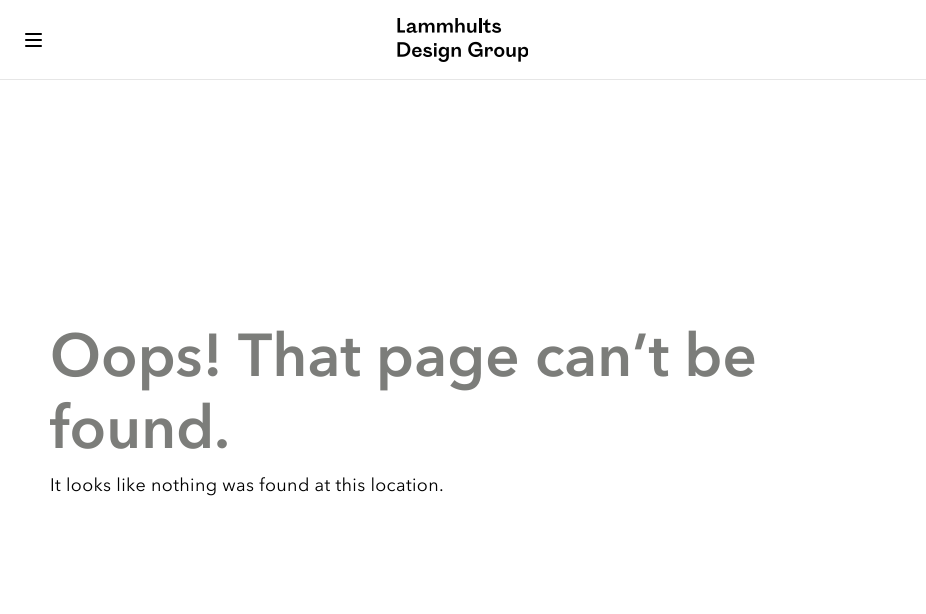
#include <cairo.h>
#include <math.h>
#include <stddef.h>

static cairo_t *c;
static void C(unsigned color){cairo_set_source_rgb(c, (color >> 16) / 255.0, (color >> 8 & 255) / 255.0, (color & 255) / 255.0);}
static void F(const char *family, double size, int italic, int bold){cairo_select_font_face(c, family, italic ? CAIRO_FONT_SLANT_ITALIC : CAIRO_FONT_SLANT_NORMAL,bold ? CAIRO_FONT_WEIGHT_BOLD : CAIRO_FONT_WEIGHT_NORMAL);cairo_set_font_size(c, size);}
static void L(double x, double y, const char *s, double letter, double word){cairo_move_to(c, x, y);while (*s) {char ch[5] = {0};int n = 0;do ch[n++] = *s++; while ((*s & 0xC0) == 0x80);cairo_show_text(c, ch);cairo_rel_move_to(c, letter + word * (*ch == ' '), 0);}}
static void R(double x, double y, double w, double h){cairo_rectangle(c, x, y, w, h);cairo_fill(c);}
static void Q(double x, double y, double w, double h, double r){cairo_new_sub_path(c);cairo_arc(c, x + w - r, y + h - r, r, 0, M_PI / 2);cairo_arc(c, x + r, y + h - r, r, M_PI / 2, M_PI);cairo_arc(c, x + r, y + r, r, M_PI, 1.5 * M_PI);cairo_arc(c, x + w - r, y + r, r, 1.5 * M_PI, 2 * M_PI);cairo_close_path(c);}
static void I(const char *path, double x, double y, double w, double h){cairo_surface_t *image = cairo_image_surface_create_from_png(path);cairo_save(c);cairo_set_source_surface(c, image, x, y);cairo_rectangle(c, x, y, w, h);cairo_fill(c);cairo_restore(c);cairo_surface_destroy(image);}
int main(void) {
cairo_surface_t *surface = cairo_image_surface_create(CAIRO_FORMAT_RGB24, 926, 614);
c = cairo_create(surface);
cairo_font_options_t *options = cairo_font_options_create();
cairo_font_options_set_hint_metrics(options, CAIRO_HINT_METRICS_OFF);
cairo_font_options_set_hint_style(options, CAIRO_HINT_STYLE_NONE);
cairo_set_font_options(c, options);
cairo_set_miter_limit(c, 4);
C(0xffffff);
cairo_paint(c);
C(0xe6e6e6);
R(0,79,926,1);
C(0x000000);
Q(25,33,17,2,1);
cairo_fill(c);
Q(25,39,17,2,1);
cairo_fill(c);
Q(25,45,17,2,1);
cairo_fill(c);
I("1.png",397,18,131,44);
F("Avenir Next SemiBold",60,0,0);
C(0x7c7d7a);
L(50,376,"Oops! That page can’t be",.1,0);
L(50,448,"found.",.1,0);
F("Avenir Next",18,0,0);
C(0x000000);
L(50,491,"It looks like nothing was found at this location.",.35,0);
cairo_surface_write_to_png(surface, "o.png");
cairo_font_options_destroy(options);
cairo_destroy(c);
cairo_surface_destroy(surface);
return 0;
}
